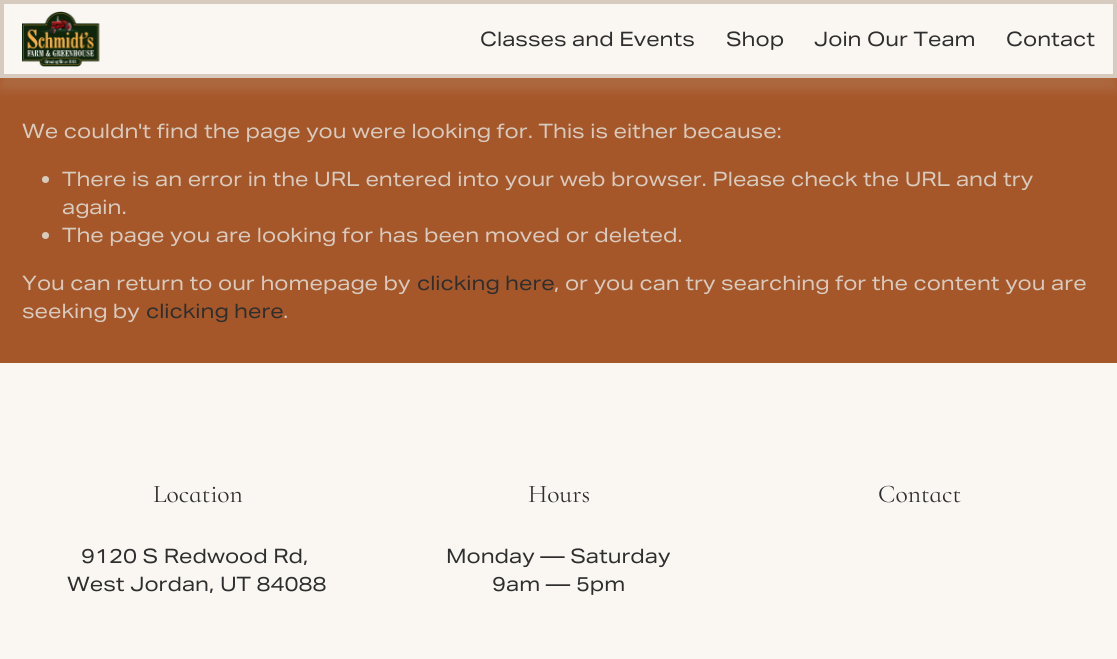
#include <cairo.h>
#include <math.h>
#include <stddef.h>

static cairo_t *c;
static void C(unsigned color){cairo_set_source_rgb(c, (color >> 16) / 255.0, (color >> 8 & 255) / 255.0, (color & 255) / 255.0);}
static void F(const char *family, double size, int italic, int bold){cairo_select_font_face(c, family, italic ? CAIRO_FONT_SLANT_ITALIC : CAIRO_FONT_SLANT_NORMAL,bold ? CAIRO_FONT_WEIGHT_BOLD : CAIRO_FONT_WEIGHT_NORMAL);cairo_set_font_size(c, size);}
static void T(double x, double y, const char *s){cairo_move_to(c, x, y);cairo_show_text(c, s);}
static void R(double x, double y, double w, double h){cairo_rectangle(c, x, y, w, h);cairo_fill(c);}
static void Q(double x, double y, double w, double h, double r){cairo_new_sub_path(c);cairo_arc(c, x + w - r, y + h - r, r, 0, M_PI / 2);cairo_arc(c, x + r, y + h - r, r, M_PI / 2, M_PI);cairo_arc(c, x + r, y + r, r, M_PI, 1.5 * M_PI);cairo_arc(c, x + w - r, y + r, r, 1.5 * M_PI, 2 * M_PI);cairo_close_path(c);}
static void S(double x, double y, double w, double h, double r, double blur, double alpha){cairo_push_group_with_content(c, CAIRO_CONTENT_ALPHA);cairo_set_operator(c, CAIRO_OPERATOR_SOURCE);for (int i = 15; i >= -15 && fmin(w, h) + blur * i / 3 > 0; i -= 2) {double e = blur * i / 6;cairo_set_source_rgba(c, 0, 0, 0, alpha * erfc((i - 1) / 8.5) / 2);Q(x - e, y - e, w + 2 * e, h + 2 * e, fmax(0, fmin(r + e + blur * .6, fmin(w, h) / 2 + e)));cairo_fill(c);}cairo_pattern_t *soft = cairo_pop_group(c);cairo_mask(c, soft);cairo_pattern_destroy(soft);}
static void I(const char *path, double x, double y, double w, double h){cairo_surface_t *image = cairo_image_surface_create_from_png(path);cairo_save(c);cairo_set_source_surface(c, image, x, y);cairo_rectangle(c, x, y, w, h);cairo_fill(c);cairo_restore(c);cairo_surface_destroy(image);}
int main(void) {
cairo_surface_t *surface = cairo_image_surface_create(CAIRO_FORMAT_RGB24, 1117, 659);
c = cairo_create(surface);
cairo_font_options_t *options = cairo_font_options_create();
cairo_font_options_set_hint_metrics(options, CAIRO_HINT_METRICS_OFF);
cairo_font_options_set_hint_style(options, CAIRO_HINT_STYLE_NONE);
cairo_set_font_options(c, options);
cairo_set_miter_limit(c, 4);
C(0xa65729);
cairo_paint(c);
C(0xfaf7f3);
R(4,4,1109,70);
cairo_save(c);
cairo_rectangle(c,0,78,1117,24);
cairo_clip(c);
C(0xad6840);
S(0,12,1117,78,0,6,1);
cairo_restore(c);
cairo_rectangle(c,2,2,1113,74);
C(0xd7cbbf);
cairo_set_line_width(c,4);
cairo_stroke(c);
I("1.png",22,11,78,56);
F("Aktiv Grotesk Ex",20,0,0);
C(0x2e2e2e);
T(480,46,"Classes and Events");
T(726,46,"Shop");
T(814,46,"Join Our Team");
T(1006,46,"Contact");
C(0xd7cbbf);
T(22,138,"We couldn't find the page you were looking for. This is either because:");
cairo_new_path(c);
cairo_arc(c,45.5,179.5,3.5,0,2 * M_PI);
cairo_fill(c);
T(62,186,"There is an error in the URL entered into your web browser. Please check the URL and try");
T(62,214,"again.");
cairo_new_path(c);
cairo_arc(c,45.5,235.5,3.5,0,2 * M_PI);
cairo_fill(c);
T(62,242,"The page you are looking for has been moved or deleted.");
T(22,290,"You can return to our homepage by");
C(0x2e2e2e);
T(417,290,"clicking here");
C(0xd7cbbf);
T(554,290,", or you can try searching for the content you are");
T(22,318,"seeking by");
C(0x2e2e2e);
T(146,318,"clicking here");
C(0xd7cbbf);
T(283,318,".");
C(0xfaf7f3);
R(0,363,1117,296);
F("Cormorant Infant",25.5,0,0);
C(0x2e2e2e);
T(153,502,"Location");
F("Aktiv Grotesk Ex",20,0,0);
T(81,563,"9120 S Redwood Rd,");
T(67,591,"West Jordan, UT 84088");
F("Cormorant Infant",25.5,0,0);
T(528,502,"Hours");
F("Aktiv Grotesk Ex",20,0,0);
T(446,563,"Monday — Saturday");
T(492,591,"9am — 5pm");
F("Cormorant Infant",25.5,0,0);
T(878,502,"Contact");
cairo_surface_write_to_png(surface, "o.png");
cairo_font_options_destroy(options);
cairo_destroy(c);
cairo_surface_destroy(surface);
return 0;
}
